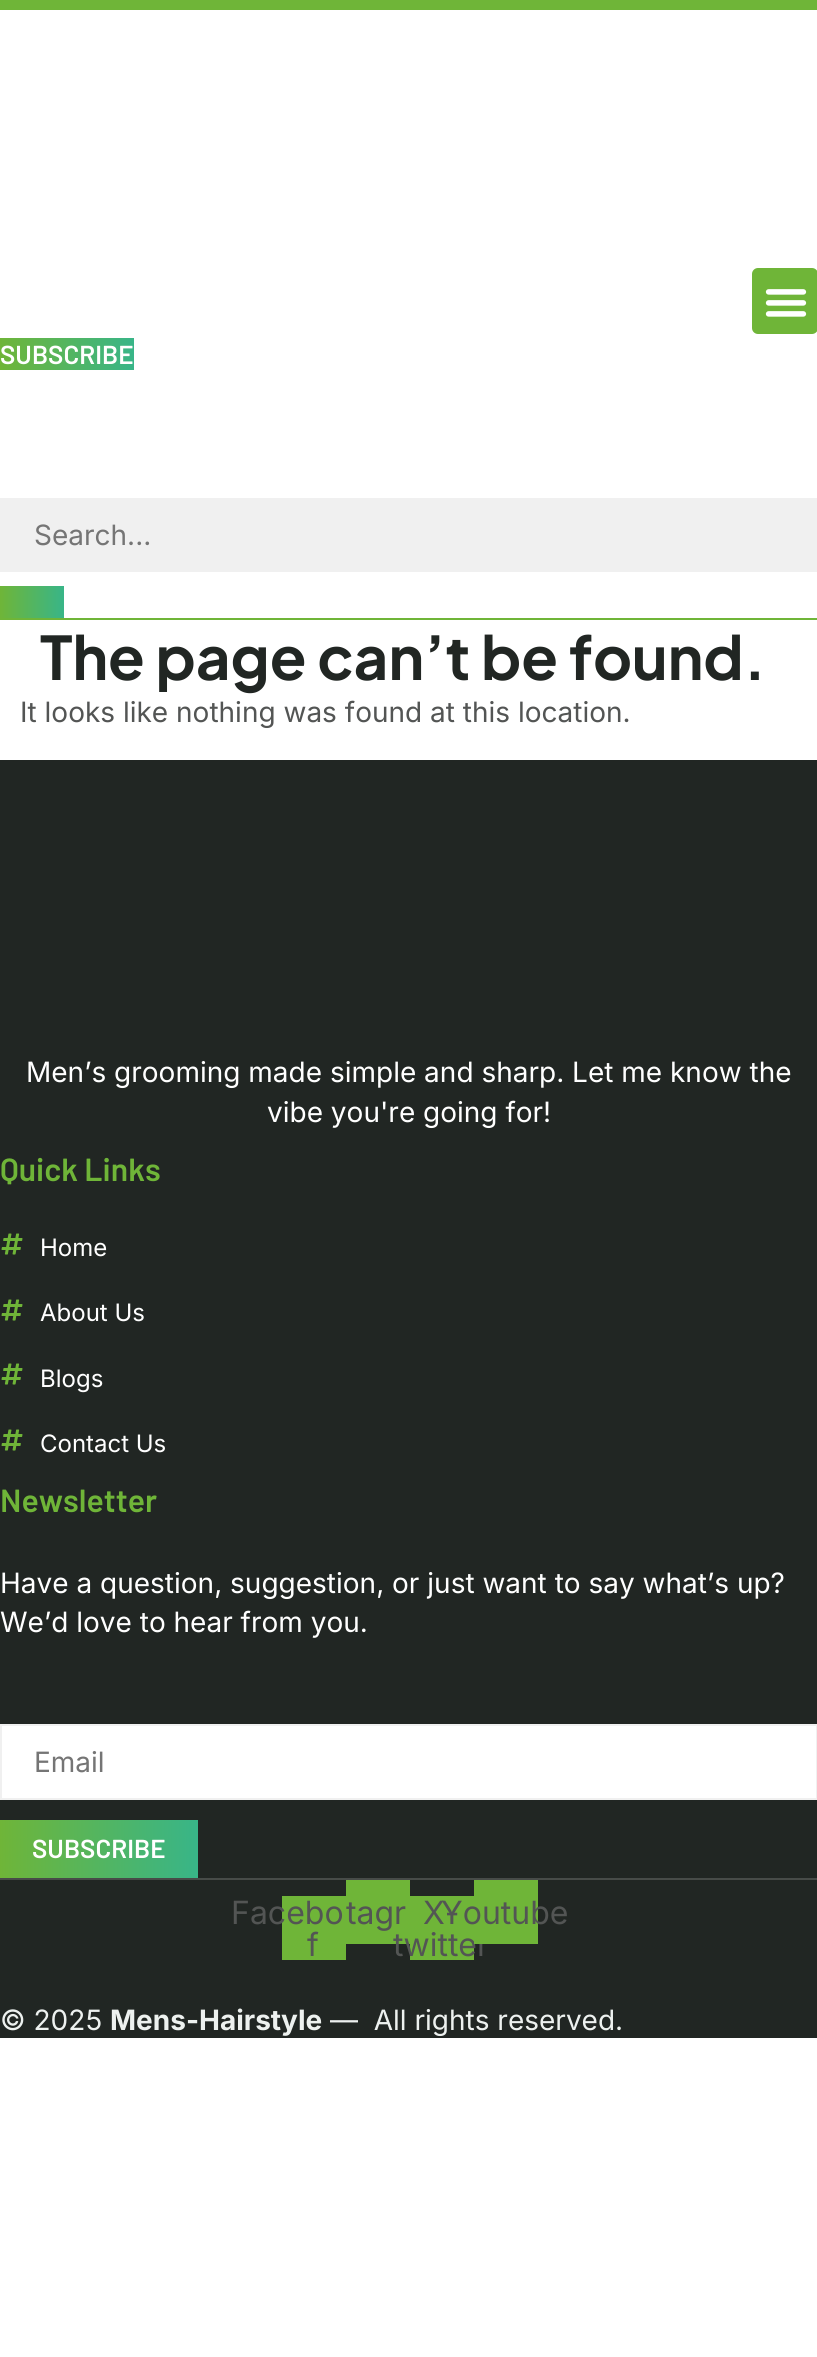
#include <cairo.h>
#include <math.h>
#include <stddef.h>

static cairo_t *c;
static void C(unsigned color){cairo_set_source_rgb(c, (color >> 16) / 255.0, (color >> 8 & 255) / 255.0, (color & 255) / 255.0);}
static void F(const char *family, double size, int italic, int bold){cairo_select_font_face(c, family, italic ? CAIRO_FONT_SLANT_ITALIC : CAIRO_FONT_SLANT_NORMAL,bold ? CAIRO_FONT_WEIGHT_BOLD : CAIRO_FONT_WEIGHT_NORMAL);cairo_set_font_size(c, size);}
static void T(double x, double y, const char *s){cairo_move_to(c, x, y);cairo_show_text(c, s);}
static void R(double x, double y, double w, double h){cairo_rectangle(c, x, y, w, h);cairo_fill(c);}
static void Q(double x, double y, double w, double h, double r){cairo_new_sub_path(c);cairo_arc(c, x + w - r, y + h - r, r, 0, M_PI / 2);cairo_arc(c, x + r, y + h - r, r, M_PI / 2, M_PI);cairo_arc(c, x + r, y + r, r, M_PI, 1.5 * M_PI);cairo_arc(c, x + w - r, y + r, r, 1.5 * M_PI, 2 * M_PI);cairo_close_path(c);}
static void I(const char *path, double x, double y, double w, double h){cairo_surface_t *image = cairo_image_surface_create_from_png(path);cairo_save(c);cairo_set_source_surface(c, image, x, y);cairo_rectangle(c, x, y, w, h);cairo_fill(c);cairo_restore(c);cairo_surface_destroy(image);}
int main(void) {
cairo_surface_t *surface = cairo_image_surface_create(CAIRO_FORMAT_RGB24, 817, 2357);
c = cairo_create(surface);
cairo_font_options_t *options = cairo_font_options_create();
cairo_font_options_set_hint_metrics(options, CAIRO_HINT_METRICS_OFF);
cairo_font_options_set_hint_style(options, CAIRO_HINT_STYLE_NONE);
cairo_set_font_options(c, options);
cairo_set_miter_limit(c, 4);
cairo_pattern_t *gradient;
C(0xffffff);
cairo_paint(c);
C(0x6fb538);
R(0,0,817,10);
R(0,618,817,2);
Q(752,268,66,66,6);
cairo_fill(c);
I("1.png",765,289,42,28);
gradient = cairo_pattern_create_linear(0,354,134,354);
cairo_pattern_add_color_stop_rgba(gradient,0,0.435,0.71,0.22,1);
cairo_pattern_add_color_stop_rgba(gradient,1,0.22,0.71,0.533,1);
cairo_set_source(c,gradient);
cairo_pattern_destroy(gradient);
R(0,338,134,32);
F("Barlow SemiBold",26,0,0);
C(0xffffff);
T(0,364,"SUBSCRIBE");
C(0xf0f0f0);
R(0,498,817,74);
F("Inter",28,0,0);
C(0x757575);
T(34,545,"Search...");
gradient = cairo_pattern_create_linear(0,602,64,602);
cairo_pattern_add_color_stop_rgba(gradient,0,0.435,0.71,0.22,1);
cairo_pattern_add_color_stop_rgba(gradient,1,0.22,0.71,0.533,1);
cairo_set_source(c,gradient);
cairo_pattern_destroy(gradient);
R(0,586,64,32);
F("Plus Jakarta Sans",60,0,1);
C(0x212623);
T(40,680,"The page can’t be found.");
F("Inter",28,0,0);
C(0x535554);
T(20,722,"It looks like nothing was found at this location.");
C(0x212623);
R(0,760,817,1278);
C(0xffffff);
T(26,1082,"Men’s grooming made simple and sharp. Let me know the");
T(267,1122,"vibe you're going for!");
F("Barlow SemiBold",32,0,0);
C(0x6fb538);
T(0,1181,"Quick Links");
I("2.png",1,1233,22,22);
F("Inter",24,0,0);
C(0xffffff);
T(40,1256,"Home");
I("2.png",1,1299,22,22);
T(40,1321,"About Us");
I("2.png",1,1363,22,22);
T(40,1387,"Blogs");
I("2.png",1,1429,22,22);
T(40,1452,"Contact Us");
F("Barlow SemiBold",32,0,0);
C(0x6fb538);
T(0,1512,"Newsletter");
F("Inter",28,0,0);
C(0xffffff);
T(0,1593,"Have a question, suggestion, or just want to say what’s up?");
T(0,1632,"We’d love to hear from you.");
cairo_rectangle(c,1,1725,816,74);
cairo_fill_preserve(c);
C(0xf0f0f0);
cairo_stroke(c);
C(0x757575);
T(34,1772,"Email");
gradient = cairo_pattern_create_linear(0,1849,198,1849);
cairo_pattern_add_color_stop_rgba(gradient,0,0.435,0.71,0.22,1);
cairo_pattern_add_color_stop_rgba(gradient,1,0.22,0.71,0.533,1);
cairo_set_source(c,gradient);
cairo_pattern_destroy(gradient);
R(0,1820,198,58);
F("Barlow SemiBold",26,0,0);
C(0xffffff);
T(32,1858,"SUBSCRIBE");
C(0x474b48);
R(0,1878,817,2);
C(0x6fb538);
R(282,1896,64,64);
F("Inter",32,0,0);
C(0x535554);
T(231,1924,"Facebo");
T(307,1956,"f");
C(0x6fb538);
R(346,1880,64,64);
C(0x535554);
T(346,1924,"tagr");
C(0x6fb538);
R(410,1896,64,64);
C(0x535554);
T(423,1924,"X-");
T(393,1956,"twitter");
C(0x6fb538);
R(474,1880,64,64);
C(0x535554);
T(441,1924,"Youtube");
F("Inter",28,0,0);
C(0xedf1ef);
T(0,2030,"© 2025");
F("Inter",28,0,1);
T(110,2030,"Mens-Hairstyle");
F("Inter",28,0,0);
T(330,2030,"—  All rights reserved.");
cairo_surface_write_to_png(surface, "o.png");
cairo_font_options_destroy(options);
cairo_destroy(c);
cairo_surface_destroy(surface);
return 0;
}
